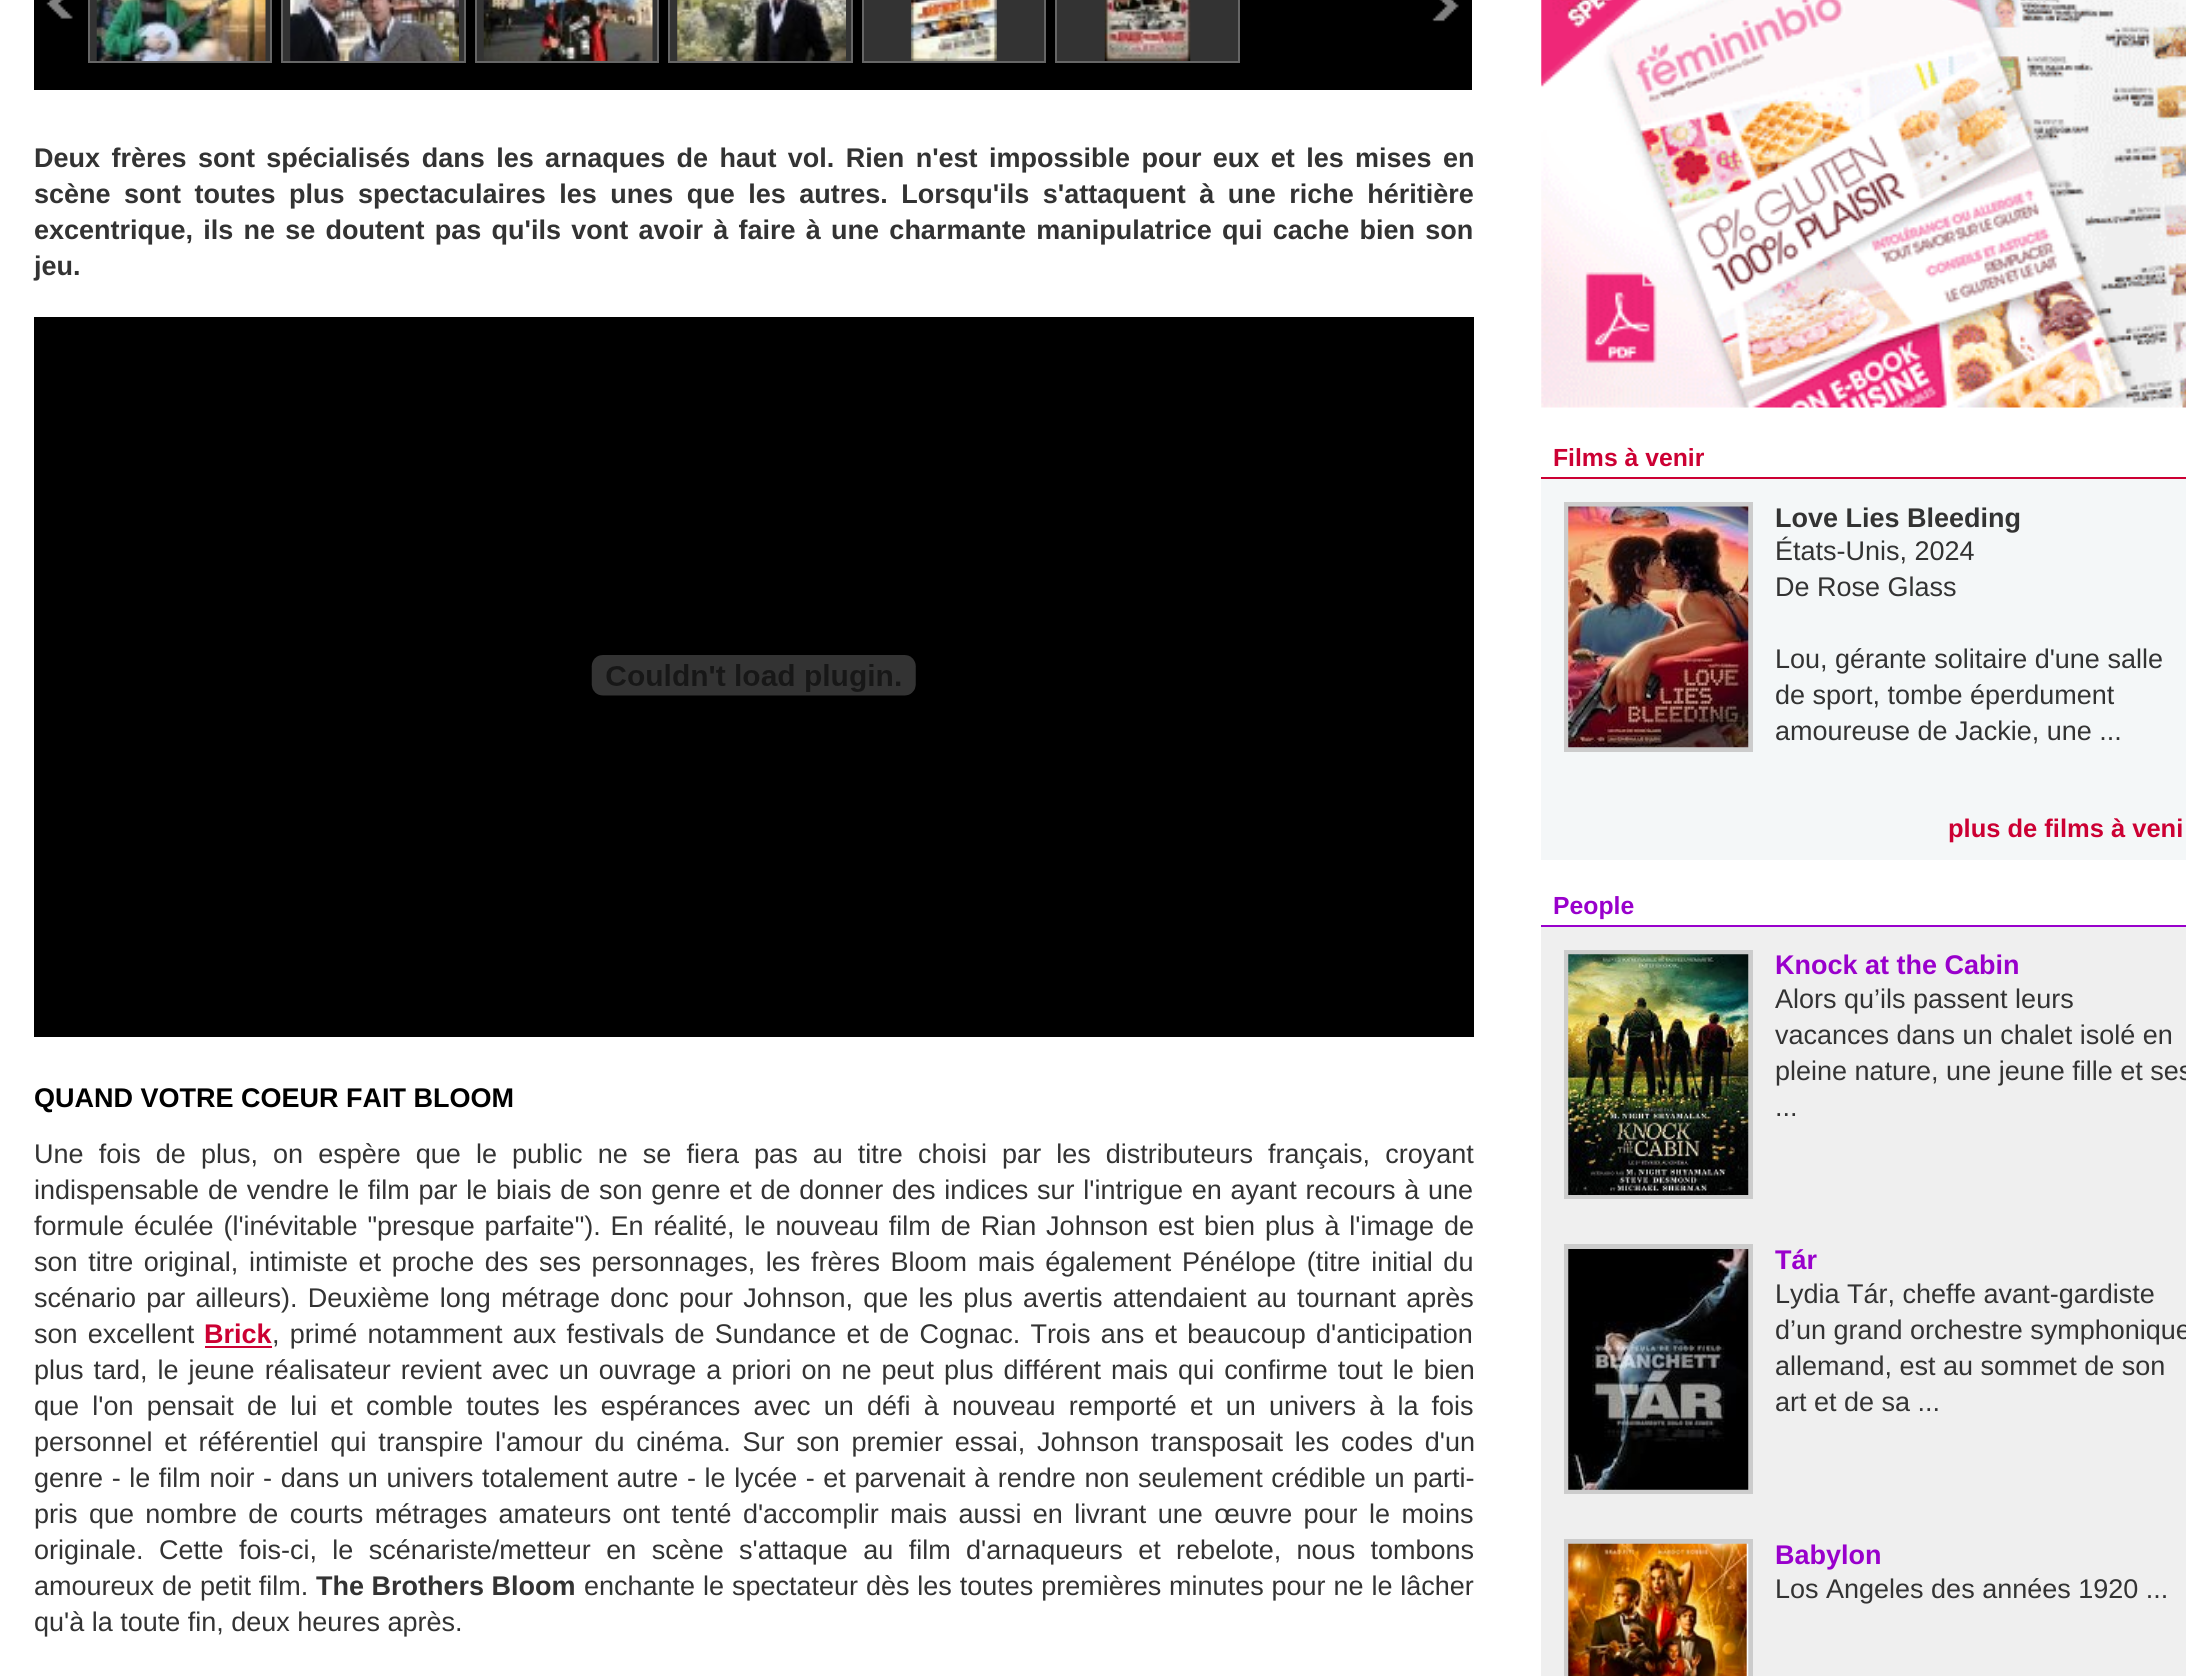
#include <cairo.h>
#include <math.h>
#include <stddef.h>

static cairo_t *c;
static void C(unsigned color){cairo_set_source_rgb(c, (color >> 16) / 255.0, (color >> 8 & 255) / 255.0, (color & 255) / 255.0);}
static void F(const char *family, double size, int italic, int bold){cairo_select_font_face(c, family, italic ? CAIRO_FONT_SLANT_ITALIC : CAIRO_FONT_SLANT_NORMAL,bold ? CAIRO_FONT_WEIGHT_BOLD : CAIRO_FONT_WEIGHT_NORMAL);cairo_set_font_size(c, size);}
static void T(double x, double y, const char *s){cairo_move_to(c, x, y);cairo_show_text(c, s);}
static void L(double x, double y, const char *s, double letter, double word){cairo_move_to(c, x, y);while (*s) {char ch[5] = {0};int n = 0;do ch[n++] = *s++; while ((*s & 0xC0) == 0x80);cairo_show_text(c, ch);cairo_rel_move_to(c, letter + word * (*ch == ' '), 0);}}
static void R(double x, double y, double w, double h){cairo_rectangle(c, x, y, w, h);cairo_fill(c);}
static void I(const char *path, double x, double y, double w, double h){cairo_surface_t *image = cairo_image_surface_create_from_png(path);cairo_save(c);cairo_set_source_surface(c, image, x, y);cairo_rectangle(c, x, y, w, h);cairo_fill(c);cairo_restore(c);cairo_surface_destroy(image);}
int main(void) {
cairo_surface_t *surface = cairo_image_surface_create(CAIRO_FORMAT_RGB24, 2186, 1676);
c = cairo_create(surface);
cairo_font_options_t *options = cairo_font_options_create();
cairo_font_options_set_hint_metrics(options, CAIRO_HINT_METRICS_OFF);
cairo_font_options_set_hint_style(options, CAIRO_HINT_STYLE_NONE);
cairo_set_font_options(c, options);
cairo_set_miter_limit(c, 4);
C(0xffffff);
cairo_paint(c);
C(0x000000);
R(34,0,1438,90);
I("1.png",46,0,27,19);
C(0x333333);
cairo_rectangle(c,89,-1,182,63);
cairo_fill_preserve(c);
C(0x666666);
cairo_stroke(c);
I("2.png",96,0,170,61);
C(0x333333);
cairo_rectangle(c,282,-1,183,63);
cairo_fill_preserve(c);
C(0x666666);
cairo_stroke(c);
I("3.png",290,0,169,61);
C(0x333333);
cairo_rectangle(c,476,-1,182,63);
cairo_fill_preserve(c);
C(0x666666);
cairo_stroke(c);
I("4.png",483,0,170,61);
C(0x333333);
cairo_rectangle(c,669,-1,183,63);
cairo_fill_preserve(c);
C(0x666666);
cairo_stroke(c);
I("5.png",677,0,169,61);
C(0x333333);
cairo_rectangle(c,863,-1,182,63);
cairo_fill_preserve(c);
C(0x666666);
cairo_stroke(c);
I("6.png",911,0,86,61);
C(0x333333);
cairo_rectangle(c,1056,-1,183,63);
cairo_fill_preserve(c);
C(0x666666);
cairo_stroke(c);
I("7.png",1104,0,87,61);
I("8.png",1432,0,27,22);
F("Liberation Sans",27,0,1);
C(0x333333);
L(34,167,"Deux frères sont spécialisés dans les arnaques de haut vol. Rien n'est impossible pour eux et les mises en",0,3.9);
L(34,203,"scène sont toutes plus spectaculaires les unes que les autres. Lorsqu'ils s'attaquent à une riche héritière",0,6);
L(34,239,"excentrique, ils ne se doutent pas qu'ils vont avoir à faire à une charmante manipulatrice qui cache bien son",0,2.75);
T(34,275,"jeu.");
C(0x000000);
R(34,317,1440,720);
I("9.png",591,655,325,41);
T(34,1107,"QUAND VOTRE COEUR FAIT BLOOM");
F("Liberation Sans",27,0,0);
C(0x333333);
L(34,1163,"Une fois de plus, on espère que le public ne se fiera pas au titre choisi par les distributeurs français, croyant",0,7.6);
L(34,1199,"indispensable de vendre le film par le biais de son genre et de donner des indices sur l'intrigue en ayant recours à une",0,1.25);
L(34,1235,"formule éculée (l'inévitable \"presque parfaite\"). En réalité, le nouveau film de Rian Johnson est bien plus à l'image de",0,2.4);
L(34,1271,"son titre original, intimiste et proche des ses personnages, les frères Bloom mais également Pénélope (titre initial du",0,3.1);
L(34,1307,"scénario par ailleurs). Deuxième long métrage donc pour Johnson, que les plus avertis attendaient au tournant après",0,2.75);
L(34,1343,"son excellent",0,2.75);
F("Liberation Sans",27,0,1);
C(0xcc0033);
T(204,1343,"Brick");
R(205,1346,67,2);
F("Liberation Sans",27,0,0);
C(0x333333);
L(272,1343,", primé notamment aux festivals de Sundance et de Cognac. Trois ans et beaucoup d'anticipation",0,2.75);
L(34,1379,"plus tard, le jeune réalisateur revient avec un ouvrage a priori on ne peut plus différent mais qui confirme tout le bien",0,2.5);
L(34,1415,"que l'on pensait de lui et comble toutes les espérances avec un défi à nouveau remporté et un univers à la fois",0,5.7);
L(34,1451,"personnel et référentiel qui transpire l'amour du cinéma. Sur son premier essai, Johnson transposait les codes d'un",0,4.25);
L(34,1487,"genre - le film noir - dans un univers totalement autre - le lycée - et parvenait à rendre non seulement crédible un parti-",0,1.1);
L(34,1523,"pris que nombre de courts métrages amateurs ont tenté d'accomplir mais aussi en livrant une œuvre pour le moins",0,3.9);
L(34,1559,"originale. Cette fois-ci, le scénariste/metteur en scène s'attaque au film d'arnaqueurs et rebelote, nous tombons",0,7.9);
L(34,1595,"amoureux de petit film.",0,.4);
F("Liberation Sans",27,0,1);
T(316,1595,"The Brothers Bloom");
F("Liberation Sans",27,0,0);
L(584,1595,"enchante le spectateur dès les toutes premières minutes pour ne le lâcher",0,.4);
T(34,1631,"qu'à la toute fin, deux heures après.");
I("10.png",1541,0,645,408);
C(0xf4f7f8);
R(1541,479,645,381);
C(0xcc0033);
R(1541,477,645,2);
F("Liberation Sans",24.75,0,1);
T(1553,466,"Films à venir");
cairo_rectangle(c,1566.5,504.5,184,245);
C(0xcccccc);
cairo_set_line_width(c,5);
cairo_stroke(c);
I("11.png",1568,506,181,242);
F("Liberation Sans",27,0,1);
C(0x333333);
T(1775,527,"Love Lies Bleeding");
F("Liberation Sans",27,0,0);
T(1775,560,"États-Unis, 2024");
T(1775,596,"De Rose Glass");
T(1775,668,"Lou, gérante solitaire d'une salle");
T(1775,704,"de sport, tombe éperdument");
T(1775,740,"amoureuse de Jackie, une ...");
F("Liberation Sans",25.5,0,1);
C(0xcc0033);
T(1948,837,"plus de films à veni");
C(0xefefef);
R(1541,927,645,749);
C(0x9900cc);
R(1541,925,645,2);
F("Liberation Sans",24.75,0,1);
T(1553,914,"People");
cairo_rectangle(c,1566.5,952.5,184,244);
C(0xcccccc);
cairo_stroke(c);
I("12.png",1568,954,181,241);
F("Liberation Sans",27,0,1);
C(0x9900cc);
T(1775,974,"Knock at the Cabin");
F("Liberation Sans",27,0,0);
C(0x333333);
T(1775,1008,"Alors qu’ils passent leurs");
T(1775,1044,"vacances dans un chalet isolé en");
T(1775,1080,"pleine nature, une jeune fille et ses");
T(1775,1116,"...");
cairo_rectangle(c,1566.5,1246.5,184,245);
C(0xcccccc);
cairo_stroke(c);
I("13.png",1568,1249,181,241);
F("Liberation Sans",27,0,1);
C(0x9900cc);
T(1775,1269,"Tár");
F("Liberation Sans",27,0,0);
C(0x333333);
T(1775,1303,"Lydia Tár, cheffe avant-gardiste");
T(1775,1339,"d’un grand orchestre symphonique");
T(1775,1375,"allemand, est au sommet de son");
T(1775,1411,"art et de sa ...");
cairo_rectangle(c,1566.5,1541.5,184,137);
C(0xcccccc);
cairo_stroke(c);
I("14.png",1568,1543,181,133);
F("Liberation Sans",27,0,1);
C(0x9900cc);
T(1775,1564,"Babylon");
F("Liberation Sans",27,0,0);
C(0x333333);
T(1775,1598,"Los Angeles des années 1920 ...");
cairo_surface_write_to_png(surface, "o.png");
cairo_font_options_destroy(options);
cairo_destroy(c);
cairo_surface_destroy(surface);
return 0;
}
